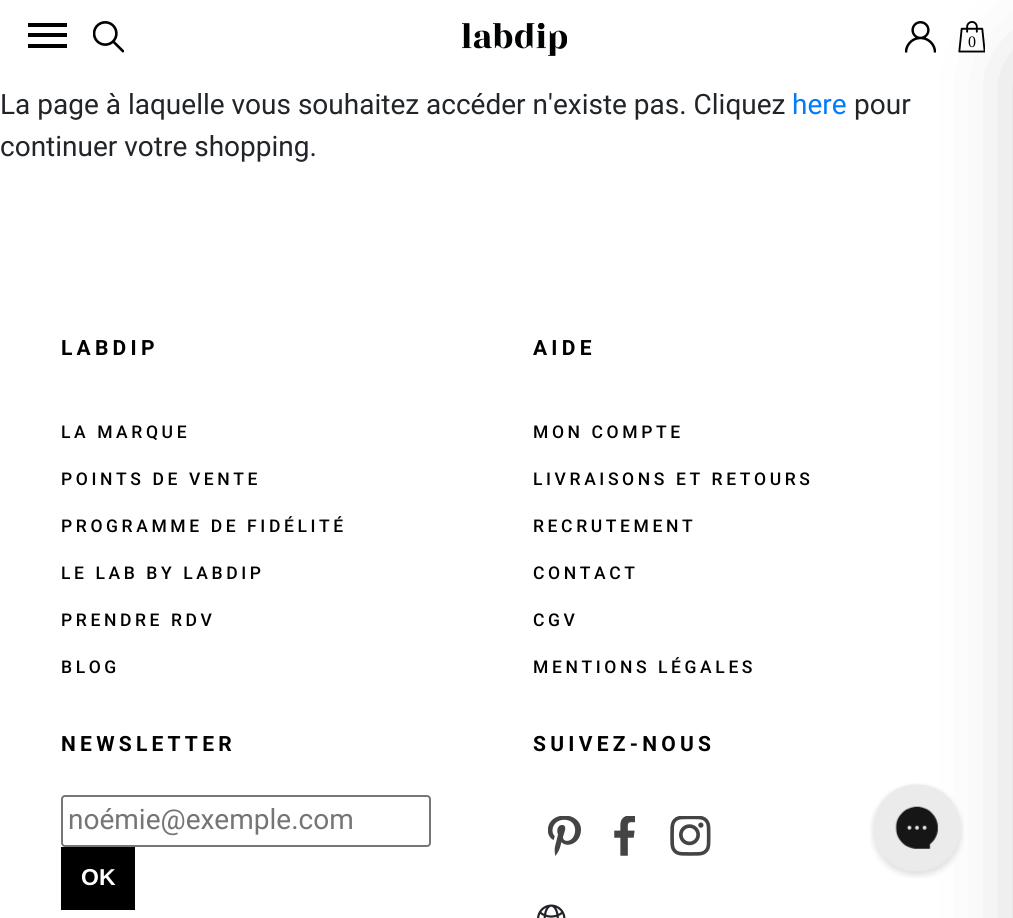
#include <cairo.h>
#include <math.h>
#include <stddef.h>

static cairo_t *c;
static void C(unsigned color){cairo_set_source_rgb(c, (color >> 16) / 255.0, (color >> 8 & 255) / 255.0, (color & 255) / 255.0);}
static void F(const char *family, double size, int italic, int bold){cairo_select_font_face(c, family, italic ? CAIRO_FONT_SLANT_ITALIC : CAIRO_FONT_SLANT_NORMAL,bold ? CAIRO_FONT_WEIGHT_BOLD : CAIRO_FONT_WEIGHT_NORMAL);cairo_set_font_size(c, size);}
static void T(double x, double y, const char *s){cairo_move_to(c, x, y);cairo_show_text(c, s);}
static void L(double x, double y, const char *s, double letter, double word){cairo_move_to(c, x, y);while (*s) {char ch[5] = {0};int n = 0;do ch[n++] = *s++; while ((*s & 0xC0) == 0x80);cairo_show_text(c, ch);cairo_rel_move_to(c, letter + word * (*ch == ' '), 0);}}
static void R(double x, double y, double w, double h){cairo_rectangle(c, x, y, w, h);cairo_fill(c);}
static void Q(double x, double y, double w, double h, double r){cairo_new_sub_path(c);cairo_arc(c, x + w - r, y + h - r, r, 0, M_PI / 2);cairo_arc(c, x + r, y + h - r, r, M_PI / 2, M_PI);cairo_arc(c, x + r, y + r, r, M_PI, 1.5 * M_PI);cairo_arc(c, x + w - r, y + r, r, 1.5 * M_PI, 2 * M_PI);cairo_close_path(c);}
static void S(double x, double y, double w, double h, double r, double blur, double alpha){cairo_push_group_with_content(c, CAIRO_CONTENT_ALPHA);cairo_set_operator(c, CAIRO_OPERATOR_SOURCE);for (int i = 15; i >= -15 && fmin(w, h) + blur * i / 3 > 0; i -= 2) {double e = blur * i / 6;cairo_set_source_rgba(c, 0, 0, 0, alpha * erfc((i - 1) / 8.5) / 2);Q(x - e, y - e, w + 2 * e, h + 2 * e, fmax(0, fmin(r + e + blur * .6, fmin(w, h) / 2 + e)));cairo_fill(c);}cairo_pattern_t *soft = cairo_pop_group(c);cairo_mask(c, soft);cairo_pattern_destroy(soft);}
static void I(const char *path, double x, double y, double w, double h){cairo_surface_t *image = cairo_image_surface_create_from_png(path);cairo_save(c);cairo_set_source_surface(c, image, x, y);cairo_rectangle(c, x, y, w, h);cairo_fill(c);cairo_restore(c);cairo_surface_destroy(image);}
int main(void) {
cairo_surface_t *surface = cairo_image_surface_create(CAIRO_FORMAT_RGB24, 1013, 918);
c = cairo_create(surface);
cairo_font_options_t *options = cairo_font_options_create();
cairo_font_options_set_hint_metrics(options, CAIRO_HINT_METRICS_OFF);
cairo_font_options_set_hint_style(options, CAIRO_HINT_STYLE_NONE);
cairo_set_font_options(c, options);
cairo_set_miter_limit(c, 4);
C(0xffffff);
cairo_paint(c);
I("3.png",905,21,31,32);
I("4.png",958,21,27,32);
C(0x000000);
S(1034,65,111,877,0,44,.25);
C(0x000000);
R(28,23,39,4);
R(28,33,39,4);
R(28,44,39,4);
I("1.png",93,21,31,32);
I("2.png",462,23,105,33);
F("Liberation Serif",16,0,0);
T(968,47,"0");
F("Roboto",28,0,0);
C(0x212529);
T(0,114,"La page à laquelle vous souhaitez accéder n'existe pas. Cliquez");
C(0x007bff);
T(792,114,"here");
C(0x212529);
T(854,114,"pour");
T(0,156,"continuer votre shopping.");
F("Roboto",21,0,1);
C(0x000000);
L(61,355,"LABDIP",4.25,0);
F("Roboto Medium",17.5,0,0);
L(61,438,"LA MARQUE",3.6,0);
L(61,485,"POINTS DE VENTE",3.6,0);
L(61,532,"PROGRAMME DE FIDÉLITÉ",3.6,0);
L(61,579,"LE LAB BY LABDIP",3.6,0);
L(61,626,"PRENDRE RDV",3.6,0);
L(61,673,"BLOG",3.6,0);
F("Roboto",21,0,1);
L(533,355,"AIDE",4.25,0);
F("Roboto Medium",17.5,0,0);
L(533,438,"MON COMPTE",3.6,0);
L(533,485,"LIVRAISONS ET RETOURS",3.6,0);
L(533,532,"RECRUTEMENT",3.6,0);
L(533,579,"CONTACT",3.6,0);
L(533,626,"CGV",3.6,0);
L(533,673,"MENTIONS LÉGALES",3.6,0);
F("Roboto",21,0,1);
L(61,751,"NEWSLETTER",4.25,0);
Q(62,796,368,50,3);
C(0x767676);
cairo_stroke(c);
F("Roboto",28,0,0);
C(0x757575);
T(68,829,"noémie@exemple.com");
C(0x000000);
R(61,847,74,63);
F("Liberation Sans",23,0,1);
C(0xffffff);
T(81,885,"OK");
F("Roboto",21,0,1);
C(0x000000);
L(533,751,"SUIVEZ-NOUS",4.25,0);
I("5.png",548,816,33,40);
I("6.png",614,816,21,40);
I("7.png",670,816,41,40);
I("8.png",537,904,29,14);
I("9.png",870,783,94,95);
cairo_surface_write_to_png(surface, "o.png");
cairo_font_options_destroy(options);
cairo_destroy(c);
cairo_surface_destroy(surface);
return 0;
}
